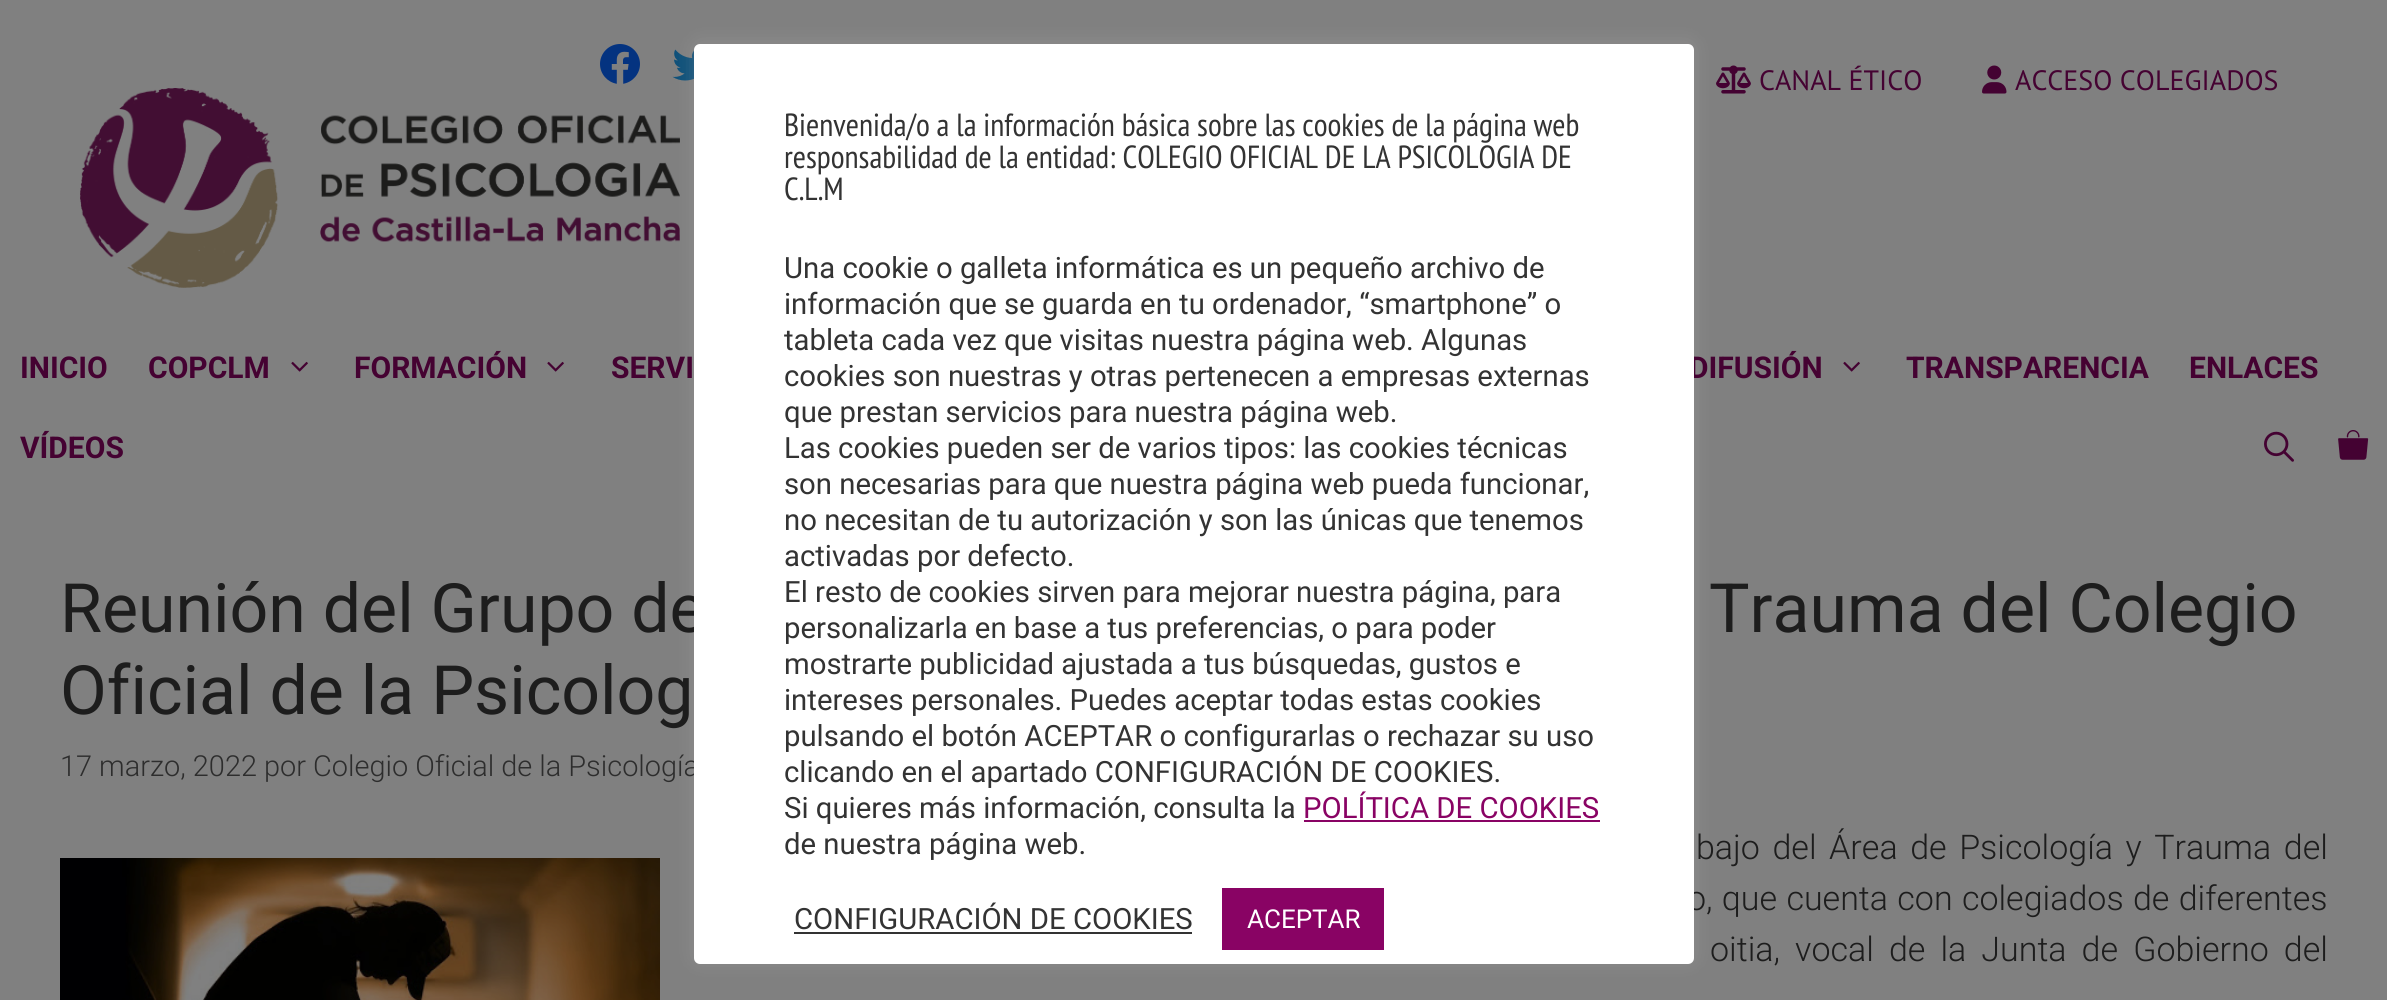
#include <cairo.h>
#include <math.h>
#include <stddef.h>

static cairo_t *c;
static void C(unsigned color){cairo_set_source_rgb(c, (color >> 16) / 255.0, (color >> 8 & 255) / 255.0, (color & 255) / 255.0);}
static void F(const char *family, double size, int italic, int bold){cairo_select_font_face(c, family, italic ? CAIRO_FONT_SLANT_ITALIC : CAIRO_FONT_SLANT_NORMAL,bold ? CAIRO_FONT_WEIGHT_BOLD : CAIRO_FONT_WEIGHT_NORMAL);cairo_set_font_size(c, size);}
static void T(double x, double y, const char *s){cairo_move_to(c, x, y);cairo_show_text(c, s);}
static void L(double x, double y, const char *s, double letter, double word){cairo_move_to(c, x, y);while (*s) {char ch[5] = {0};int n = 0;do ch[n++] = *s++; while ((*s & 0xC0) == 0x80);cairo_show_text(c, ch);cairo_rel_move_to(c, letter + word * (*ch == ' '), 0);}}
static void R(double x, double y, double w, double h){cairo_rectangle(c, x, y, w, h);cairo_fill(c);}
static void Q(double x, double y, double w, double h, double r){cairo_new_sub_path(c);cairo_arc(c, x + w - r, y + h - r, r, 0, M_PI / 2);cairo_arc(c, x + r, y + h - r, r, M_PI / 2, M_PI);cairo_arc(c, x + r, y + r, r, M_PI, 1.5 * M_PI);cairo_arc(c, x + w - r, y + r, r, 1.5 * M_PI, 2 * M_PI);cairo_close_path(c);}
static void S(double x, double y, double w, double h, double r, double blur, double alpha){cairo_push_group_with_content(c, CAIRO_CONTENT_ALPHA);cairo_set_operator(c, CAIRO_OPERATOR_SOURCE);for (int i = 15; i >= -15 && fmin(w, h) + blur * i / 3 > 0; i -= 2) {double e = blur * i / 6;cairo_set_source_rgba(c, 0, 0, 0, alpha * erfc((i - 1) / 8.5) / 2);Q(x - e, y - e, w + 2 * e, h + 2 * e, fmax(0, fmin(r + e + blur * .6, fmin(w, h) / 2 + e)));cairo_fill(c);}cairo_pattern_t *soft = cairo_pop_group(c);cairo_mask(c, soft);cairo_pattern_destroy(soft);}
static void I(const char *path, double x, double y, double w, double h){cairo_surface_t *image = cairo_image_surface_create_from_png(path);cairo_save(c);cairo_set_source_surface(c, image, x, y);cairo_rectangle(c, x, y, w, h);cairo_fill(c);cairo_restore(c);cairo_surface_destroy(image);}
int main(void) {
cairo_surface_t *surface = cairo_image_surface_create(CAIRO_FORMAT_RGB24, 2387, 1000);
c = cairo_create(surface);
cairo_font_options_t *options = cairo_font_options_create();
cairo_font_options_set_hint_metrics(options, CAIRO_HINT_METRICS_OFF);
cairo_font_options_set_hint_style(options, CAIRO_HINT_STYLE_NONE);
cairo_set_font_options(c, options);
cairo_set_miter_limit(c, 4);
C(0x808080);
cairo_paint(c);
I("1.png",600,44,40,40);
I("2.png",672,49,22,32);
I("3.png",1716,65,35,29);
F("PT Sans",28,0,0);
C(0x450232);
T(1759,90,"CANAL ÉTICO");
I("4.png",1982,65,25,29);
T(2015,90,"ACCESO COLEGIADOS");
I("5.png",80,88,600,200);
C(0xacabab);
S(694,42,1000,920,6,10,.3);
F("Roboto",30,0,1);
C(0x450232);
T(1689,378,"DIFUSIÓN");
F("Roboto",68,0,0);
C(0x1d1d1d);
T(60,632,"Reunión del Grupo de");
F("Roboto Light",28.9,0,0);
C(0x2d2d2d);
T(60,776,"17 marzo, 2022 por Colegio Oficial de la Psicología");
F("Roboto Light",34,0,0);
C(0x1d1d1d);
L(1687,910,"o, que cuenta con colegiados de diferentes",0,1);
C(0xffffff);
Q(694,44,1000,920,6);
cairo_fill(c);
F("PT Sans Narrow",32,0,0);
C(0x333333);
T(784,136,"Bienvenida/o a la información básica sobre las cookies de la página web");
T(784,168,"responsabilidad de la entidad: COLEGIO OFICIAL DE LA PSICOLOGIA DE");
T(784,200,"C.L.M");
F("Roboto",29.3,0,0);
T(784,278,"Una cookie o galleta informática es un pequeño archivo de");
T(784,314,"información que se guarda en tu ordenador, “smartphone” o");
T(784,350,"tableta cada vez que visitas nuestra página web. Algunas");
T(784,386,"cookies son nuestras y otras pertenecen a empresas externas");
T(784,422,"que prestan servicios para nuestra página web.");
T(784,458,"Las cookies pueden ser de varios tipos: las cookies técnicas");
T(784,494,"son necesarias para que nuestra página web pueda funcionar,");
T(784,530,"no necesitan de tu autorización y son las únicas que tenemos");
T(784,566,"activadas por defecto.");
T(784,602,"El resto de cookies sirven para mejorar nuestra página, para");
T(784,638,"personalizarla en base a tus preferencias, o para poder");
T(784,674,"mostrarte publicidad ajustada a tus búsquedas, gustos e");
T(784,710,"intereses personales. Puedes aceptar todas estas cookies");
T(784,746,"pulsando el botón ACEPTAR o configurarlas o rechazar su uso");
T(784,782,"clicando en el apartado CONFIGURACIÓN DE COOKIES.");
T(784,818,"Si quieres más información, consulta la");
C(0x890364);
T(1303,818,"POLÍTICA DE COOKIES");
R(1304,820,296,2);
C(0x333333);
T(784,854,"de nuestra página web.");
T(794,929,"CONFIGURACIÓN DE COOKIES");
R(794,932,398,2);
C(0x890364);
R(1222,888,162,62);
F("Roboto",26,0,0);
C(0xffffff);
T(1247,928,"ACEPTAR");
F("Roboto",30,0,1);
C(0x450232);
T(20,378,"INICIO");
T(148,378,"COPCLM");
I("6.png",291,361,17,11);
T(354,378,"FORMACIÓN");
I("6.png",547,361,17,11);
T(611,378,"SERVI");
I("6.png",1843,361,17,11);
T(1906,378,"TRANSPARENCIA");
T(2189,378,"ENLACES");
T(20,458,"VÍDEOS");
I("7.png",2264,431,30,31);
I("8.png",2338,430,31,30);
F("Roboto",68,0,0);
C(0x1d1d1d);
T(1709,632,"Trauma del Colegio");
T(60,714,"Oficial de la Psicolog");
I("9.png",60,858,600,142);
F("Roboto Light",34,0,0);
L(1696,859,"bajo del Área de Psicología y Trauma del",0,4.25);
L(1710,961,"oitia, vocal de la Junta de Gobierno del",0,6.75);
cairo_surface_write_to_png(surface, "o.png");
cairo_font_options_destroy(options);
cairo_destroy(c);
cairo_surface_destroy(surface);
return 0;
}
